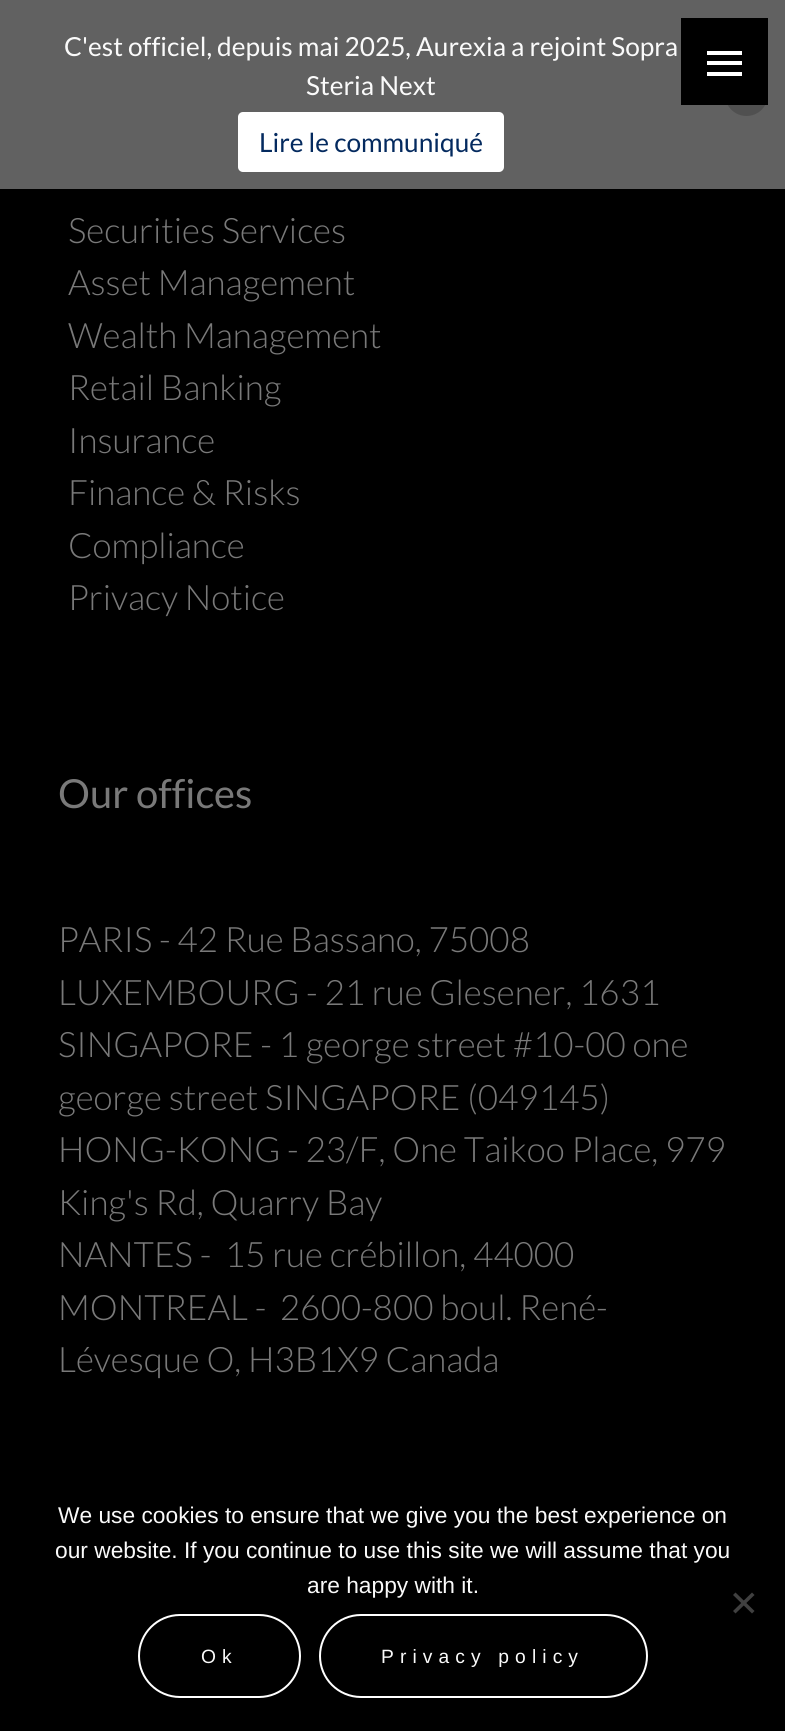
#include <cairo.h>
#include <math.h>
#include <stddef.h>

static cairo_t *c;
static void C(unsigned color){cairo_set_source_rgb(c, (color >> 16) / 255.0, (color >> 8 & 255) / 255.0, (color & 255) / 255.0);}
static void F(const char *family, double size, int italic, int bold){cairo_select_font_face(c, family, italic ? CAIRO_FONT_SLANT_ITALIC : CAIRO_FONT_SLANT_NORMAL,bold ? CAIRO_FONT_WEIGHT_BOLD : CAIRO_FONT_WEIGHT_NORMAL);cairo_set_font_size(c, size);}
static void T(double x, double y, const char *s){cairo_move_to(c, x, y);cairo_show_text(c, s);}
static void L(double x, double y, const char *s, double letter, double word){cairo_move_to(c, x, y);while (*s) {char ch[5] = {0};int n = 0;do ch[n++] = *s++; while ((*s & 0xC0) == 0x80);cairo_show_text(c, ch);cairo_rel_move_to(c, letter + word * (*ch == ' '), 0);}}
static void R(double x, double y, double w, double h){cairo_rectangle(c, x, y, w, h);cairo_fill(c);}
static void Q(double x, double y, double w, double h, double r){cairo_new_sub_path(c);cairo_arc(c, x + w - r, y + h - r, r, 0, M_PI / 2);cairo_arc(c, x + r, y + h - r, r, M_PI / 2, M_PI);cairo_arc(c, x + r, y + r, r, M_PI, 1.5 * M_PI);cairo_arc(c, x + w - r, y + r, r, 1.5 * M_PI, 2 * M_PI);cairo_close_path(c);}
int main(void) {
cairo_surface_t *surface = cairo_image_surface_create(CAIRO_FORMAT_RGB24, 785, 1731);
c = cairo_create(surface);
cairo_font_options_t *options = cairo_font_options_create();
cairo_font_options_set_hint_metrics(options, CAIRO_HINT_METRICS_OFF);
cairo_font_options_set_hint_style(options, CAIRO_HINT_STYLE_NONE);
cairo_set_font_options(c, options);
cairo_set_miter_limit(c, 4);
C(0x000000);
cairo_paint(c);
C(0x616161);
R(0,0,785,189);
F("Lato",26.25,0,0);
C(0xfafafa);
T(64,56,"C'est officiel, depuis mai 2025, Aurexia a rejoint Sopra");
T(306,95,"Steria Next");
C(0xffffff);
Q(238,112,266,60,5);
cairo_fill(c);
C(0x042a5f);
T(259,152,"Lire le communiqué");
C(0x505050);
Q(725,72,43,44,21.5);
cairo_fill(c);
C(0x000000);
R(681,18,87,87);
C(0xffffff);
R(707,51,35,4);
R(707,61,35,4);
R(707,72,35,4);
F("Lato Light",35,0,0);
C(0x797979);
T(68,243,"Securities Services");
T(68,295,"Asset Management");
T(68,348,"Wealth Management");
T(68,400,"Retail Banking");
T(68,453,"Insurance");
T(68,505,"Finance & Risks");
T(68,558,"Compliance");
T(68,610,"Privacy Notice");
F("Lato",40,0,0);
T(58,808,"Our offices");
F("Lato Light",35,0,0);
T(58,952,"PARIS - 42 Rue Bassano, 75008");
T(58,1005,"LUXEMBOURG - 21 rue Glesener, 1631");
T(58,1057,"SINGAPORE - 1 george street #10-00 one");
T(58,1110,"george street SINGAPORE (049145)");
T(58,1162,"HONG-KONG - 23/F, One Taikoo Place, 979");
T(58,1215,"King's Rd, Quarry Bay");
T(58,1267,"NANTES -  15 rue crébillon, 44000");
T(58,1320,"MONTREAL -  2600-800 boul. René-");
T(58,1372,"Lévesque O, H3B1X9 Canada");
F("Liberation Sans",22.75,0,0);
C(0xfafafa);
T(58,1523,"We use cookies to ensure that we give you the best experience on");
T(55,1558,"our website. If you continue to use this site we will assume that you");
T(307,1593,"are happy with it.");
C(0x404040);
cairo_new_path(c);
cairo_move_to(c,752,1592.5);
cairo_line_to(c,754.5,1595);
cairo_line_to(c,735.5,1613.5);
cairo_line_to(c,733,1611);
cairo_close_path(c);
cairo_fill(c);
cairo_new_path(c);
cairo_move_to(c,733,1595);
cairo_line_to(c,735.5,1592.5);
cairo_line_to(c,754.5,1611);
cairo_line_to(c,752,1613.5);
cairo_close_path(c);
cairo_fill(c);
Q(139,1615,161,82,41);
C(0xffffff);
cairo_stroke(c);
F("Liberation Sans",19.25,0,0);
C(0xfafafa);
L(201,1663,"Ok",6.1,0);
Q(320,1615,327,82,41);
C(0xffffff);
cairo_stroke(c);
C(0xfafafa);
L(381,1663,"Privacy policy",6.1,0);
cairo_surface_write_to_png(surface, "o.png");
cairo_font_options_destroy(options);
cairo_destroy(c);
cairo_surface_destroy(surface);
return 0;
}
